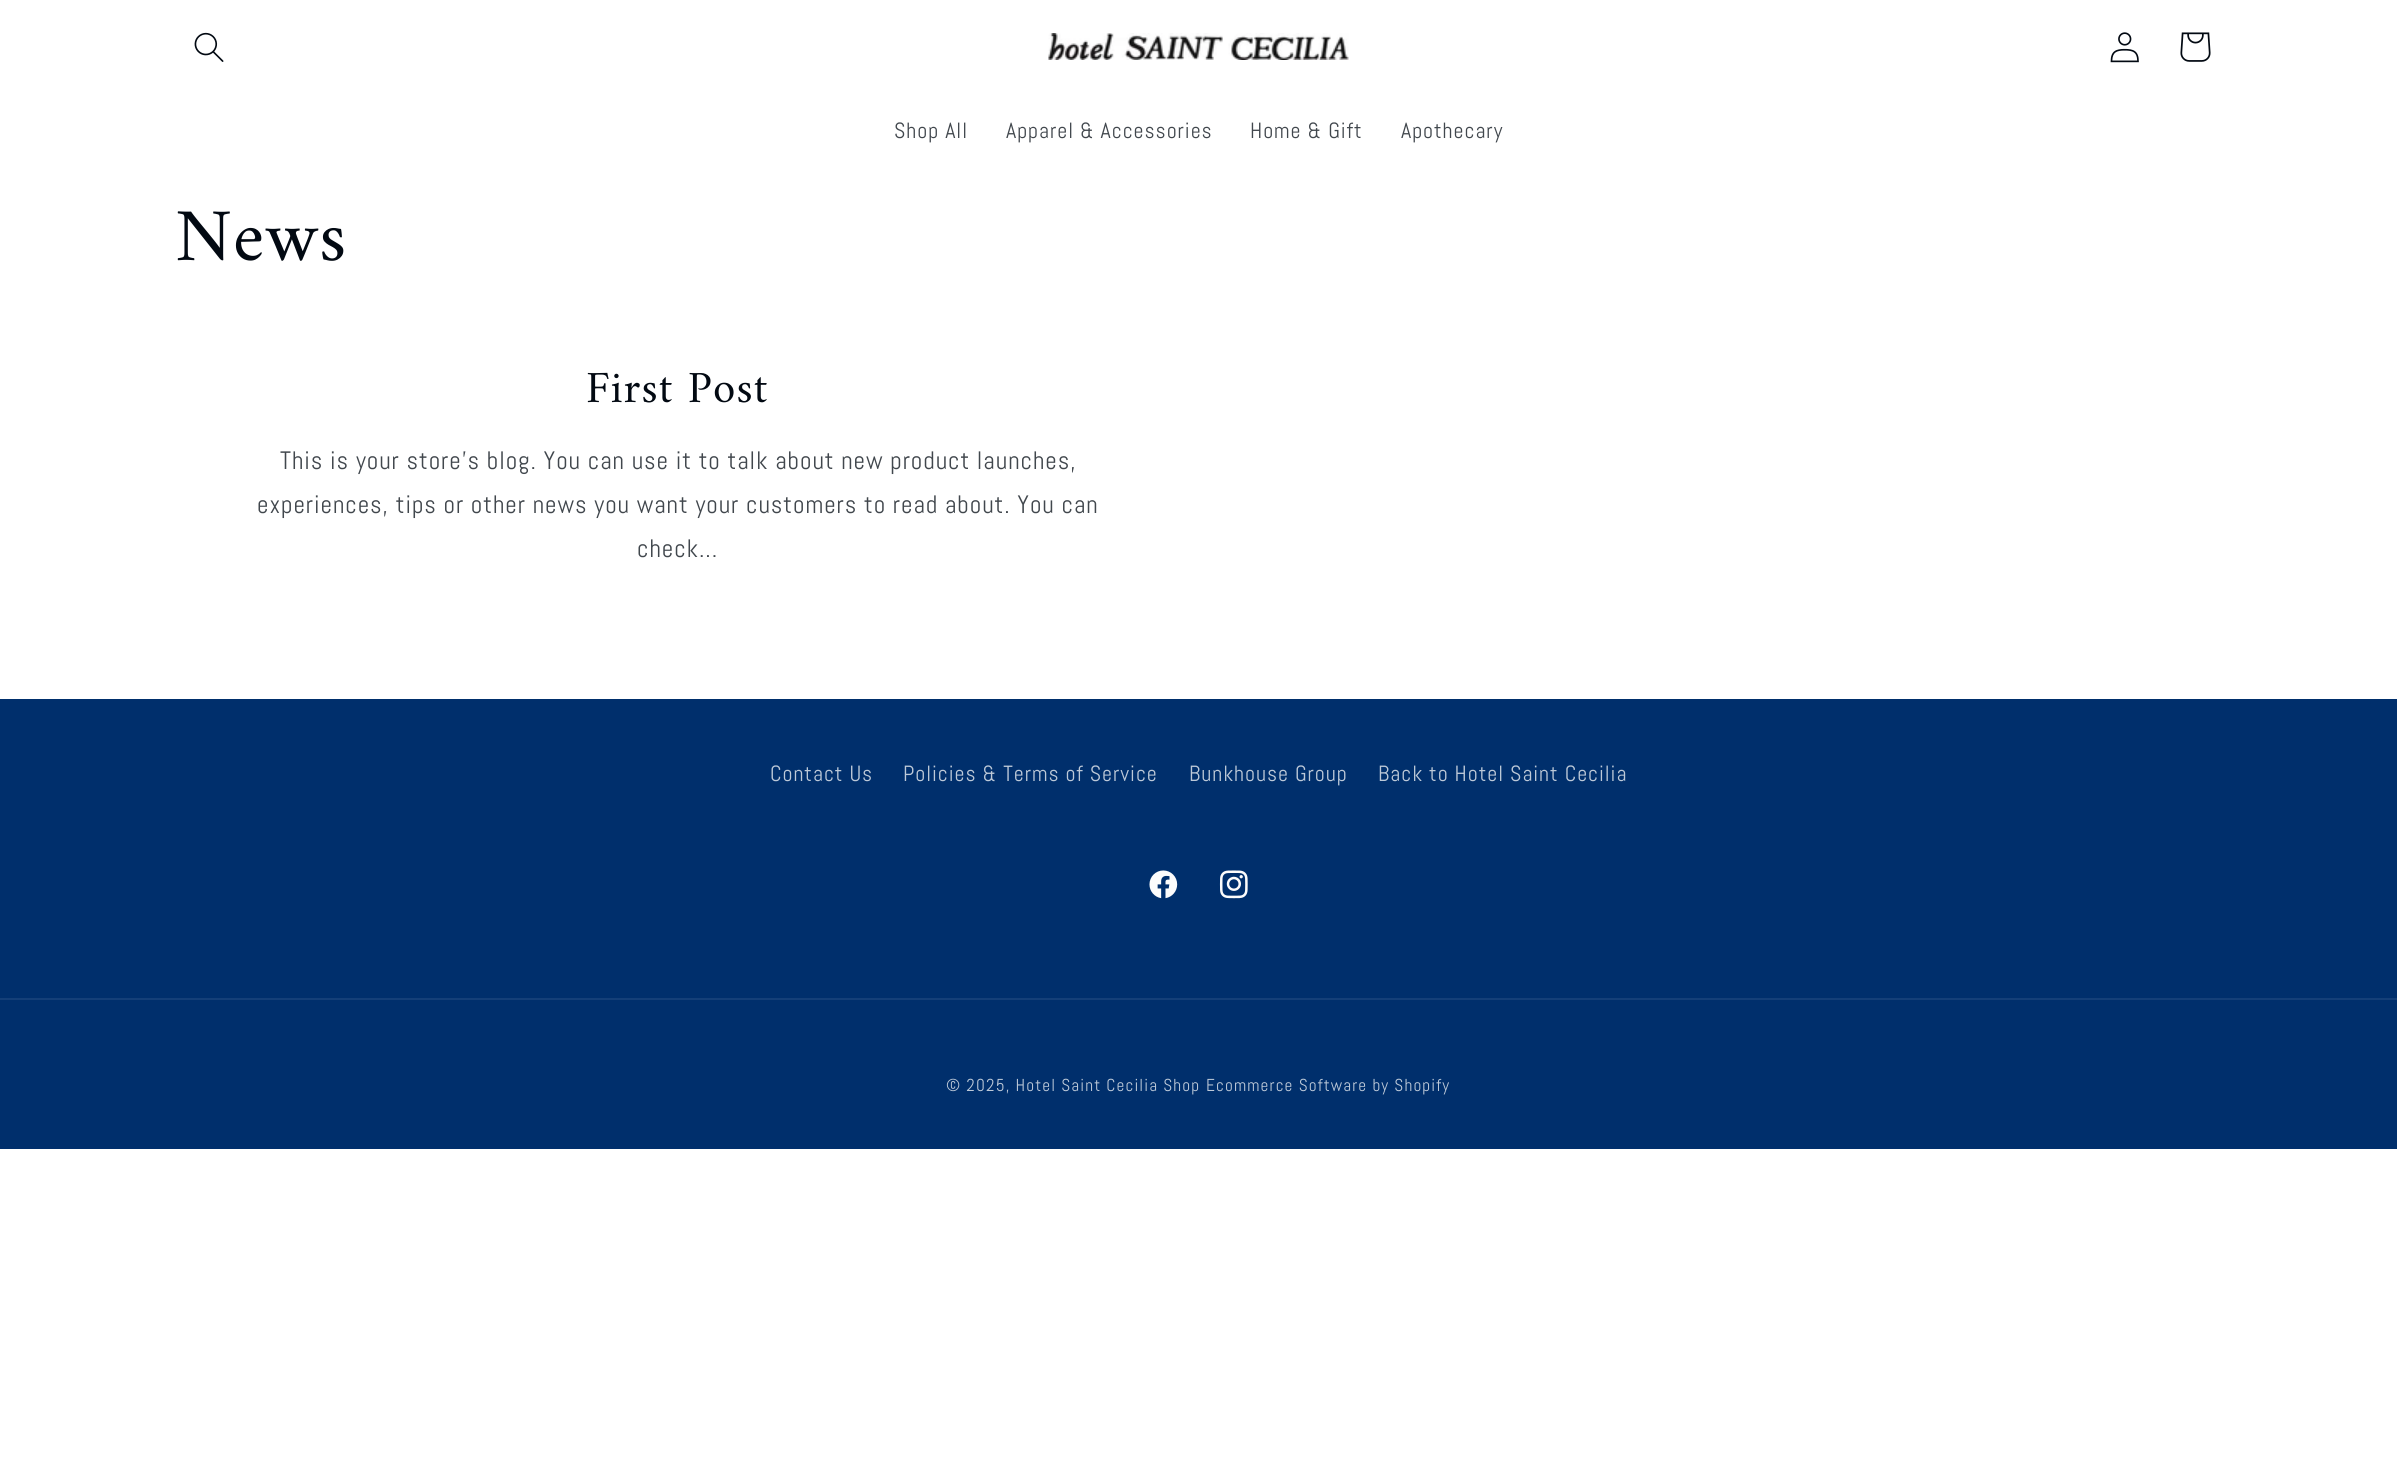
#include <cairo.h>
#include <math.h>
#include <stddef.h>

static cairo_t *c;
static void C(unsigned color){cairo_set_source_rgb(c, (color >> 16) / 255.0, (color >> 8 & 255) / 255.0, (color & 255) / 255.0);}
static void F(const char *family, double size, int italic, int bold){cairo_select_font_face(c, family, italic ? CAIRO_FONT_SLANT_ITALIC : CAIRO_FONT_SLANT_NORMAL,bold ? CAIRO_FONT_WEIGHT_BOLD : CAIRO_FONT_WEIGHT_NORMAL);cairo_set_font_size(c, size);}
static void L(double x, double y, const char *s, double letter, double word){cairo_move_to(c, x, y);while (*s) {char ch[5] = {0};int n = 0;do ch[n++] = *s++; while ((*s & 0xC0) == 0x80);cairo_show_text(c, ch);cairo_rel_move_to(c, letter + word * (*ch == ' '), 0);}}
static void R(double x, double y, double w, double h){cairo_rectangle(c, x, y, w, h);cairo_fill(c);}
static void I(const char *path, double x, double y, double w, double h){cairo_surface_t *image = cairo_image_surface_create_from_png(path);cairo_save(c);cairo_set_source_surface(c, image, x, y);cairo_rectangle(c, x, y, w, h);cairo_fill(c);cairo_restore(c);cairo_surface_destroy(image);}
int main(void) {
cairo_surface_t *surface = cairo_image_surface_create(CAIRO_FORMAT_RGB24, 2397, 1469);
c = cairo_create(surface);
cairo_font_options_t *options = cairo_font_options_create();
cairo_font_options_set_hint_metrics(options, CAIRO_HINT_METRICS_OFF);
cairo_font_options_set_hint_style(options, CAIRO_HINT_STYLE_NONE);
cairo_set_font_options(c, options);
cairo_set_miter_limit(c, 4);
C(0xffffff);
cairo_paint(c);
I("1.png",194,32,30,30);
I("2.png",1048,33,301,27);
I("3.png",2110,32,29,31);
I("4.png",2180,32,31,30);
F("Abel",22,0,0);
C(0x41474d);
L(894,138,"Shop All",.95,0);
L(1006,138,"Apparel & Accessories",.95,0);
L(1250,138,"Home & Gift",.95,0);
L(1401,138,"Apothecary",.95,0);
F("Amiri",75,0,0);
C(0x020912);
L(175,260,"News",1.1,0);
F("Amiri",45,0,0);
L(586,402,"First Post",1.1,0);
F("Abel",25.2,0,0);
C(0x41474d);
L(280,469,"This is your store’s blog. You can use it to talk about new product launches,",.95,0);
L(257,513,"experiences, tips or other news you want your customers to read about. You can",.95,0);
L(637,557,"check...",.95,0);
C(0x002f6c);
R(0,699,2397,450);
F("Abel",22,0,0);
C(0xbdc9d8);
L(770,781,"Contact Us",.95,0);
L(903,781,"Policies & Terms of Service",.95,0);
L(1189,781,"Bunkhouse Group",.95,0);
L(1378,781,"Back to Hotel Saint Cecilia",.95,0);
I("5.png",1149,870,29,29);
I("6.png",1219,870,29,29);
C(0x143f78);
R(0,998,2397,2);
F("Abel",17.3,0,0);
C(0xbdc9d8);
L(946,1091,"© 2025, Hotel Saint Cecilia Shop",1.1,0);
L(1206,1091,"Ecommerce Software by Shopify",1.1,0);
cairo_surface_write_to_png(surface, "o.png");
cairo_font_options_destroy(options);
cairo_destroy(c);
cairo_surface_destroy(surface);
return 0;
}
